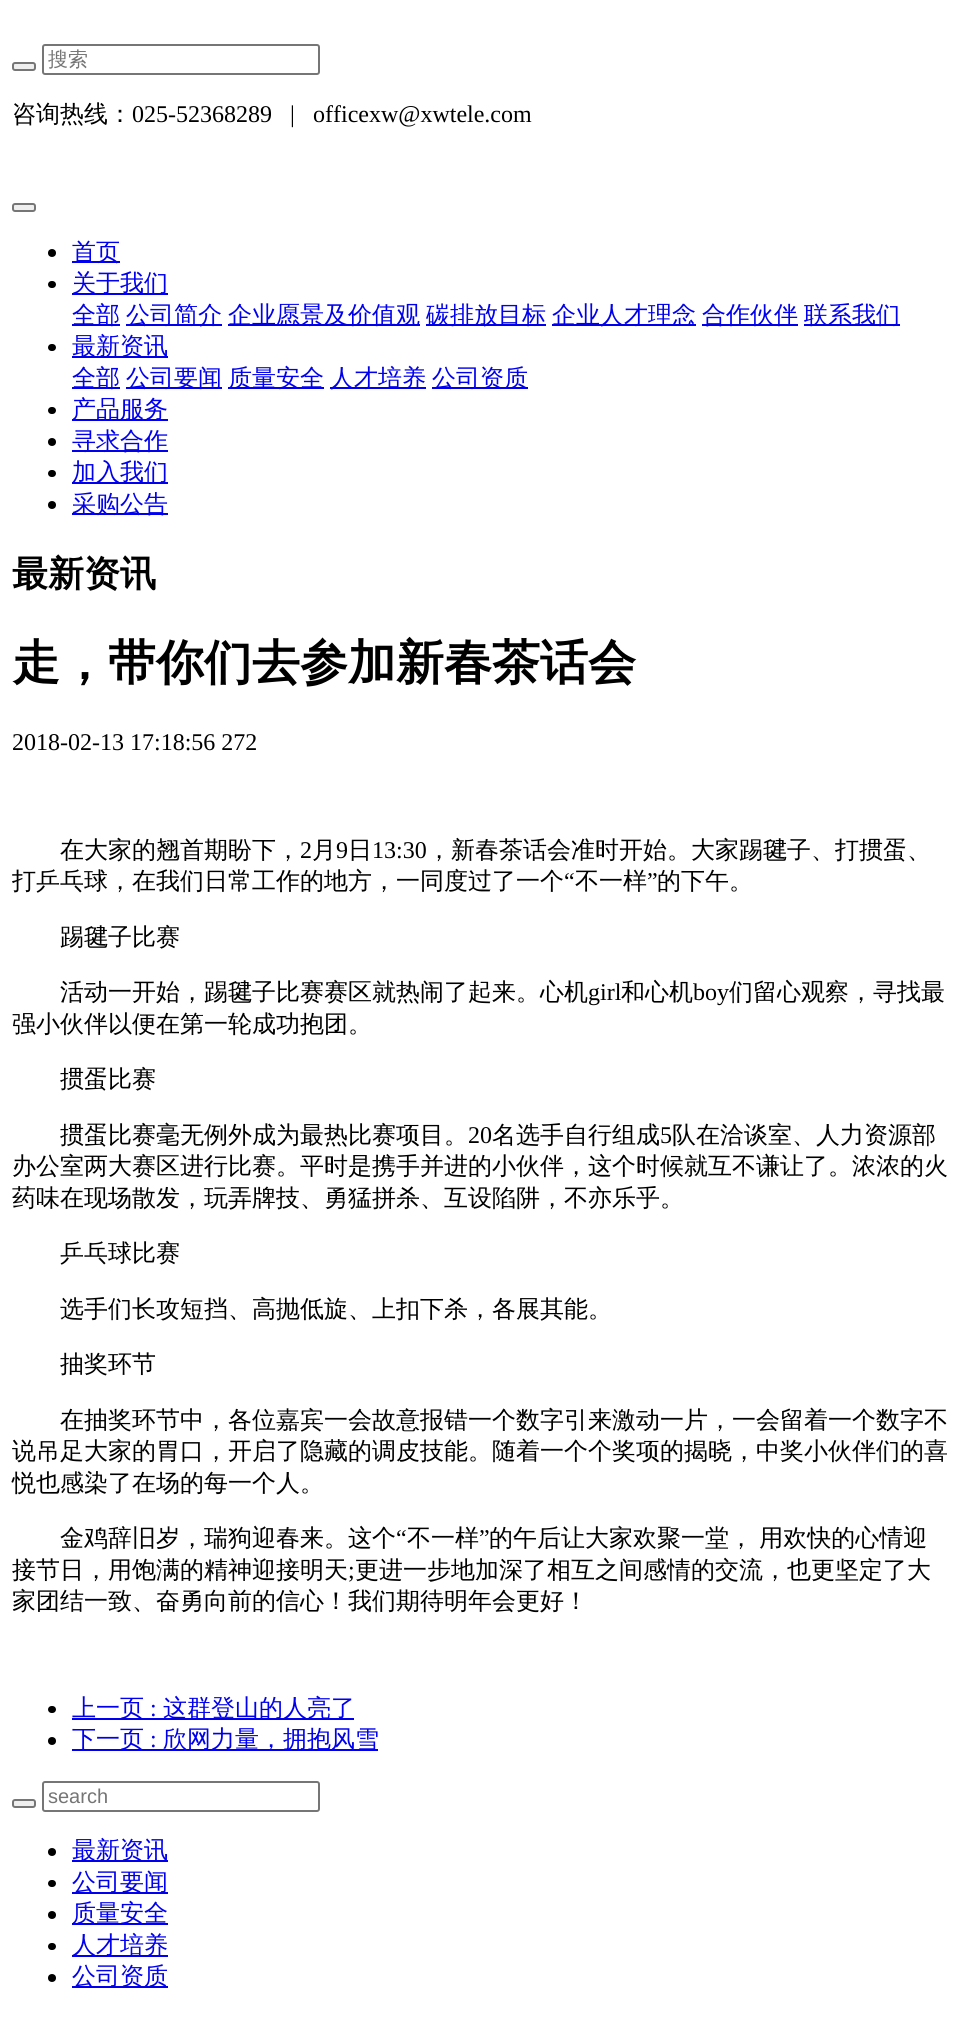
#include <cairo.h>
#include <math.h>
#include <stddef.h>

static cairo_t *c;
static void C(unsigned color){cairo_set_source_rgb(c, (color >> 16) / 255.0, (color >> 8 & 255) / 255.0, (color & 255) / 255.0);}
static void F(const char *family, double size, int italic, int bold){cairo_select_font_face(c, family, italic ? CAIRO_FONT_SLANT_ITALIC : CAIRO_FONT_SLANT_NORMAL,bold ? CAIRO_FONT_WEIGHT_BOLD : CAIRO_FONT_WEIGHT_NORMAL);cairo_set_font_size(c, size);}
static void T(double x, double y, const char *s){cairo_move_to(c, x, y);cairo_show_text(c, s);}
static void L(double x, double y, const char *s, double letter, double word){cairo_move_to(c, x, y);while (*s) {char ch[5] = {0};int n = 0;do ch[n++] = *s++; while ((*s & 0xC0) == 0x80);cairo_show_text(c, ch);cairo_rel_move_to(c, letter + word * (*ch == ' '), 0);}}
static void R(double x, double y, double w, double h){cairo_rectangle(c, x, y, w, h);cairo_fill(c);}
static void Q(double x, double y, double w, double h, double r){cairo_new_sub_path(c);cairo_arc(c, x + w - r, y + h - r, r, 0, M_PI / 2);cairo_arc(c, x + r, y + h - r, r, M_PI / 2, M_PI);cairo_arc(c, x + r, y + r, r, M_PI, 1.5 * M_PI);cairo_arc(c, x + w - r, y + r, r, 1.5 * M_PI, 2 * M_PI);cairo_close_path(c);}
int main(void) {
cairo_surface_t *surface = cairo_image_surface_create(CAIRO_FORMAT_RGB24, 961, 2038);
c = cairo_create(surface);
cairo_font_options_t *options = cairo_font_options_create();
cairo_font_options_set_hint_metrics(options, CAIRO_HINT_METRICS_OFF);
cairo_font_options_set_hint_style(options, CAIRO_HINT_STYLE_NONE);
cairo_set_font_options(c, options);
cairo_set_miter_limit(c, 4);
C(0xffffff);
cairo_paint(c);
C(0xefefef);
Q(13,63,22,7,2);
cairo_fill_preserve(c);
C(0x767676);
cairo_stroke(c);
Q(43,45,276,29,2);
cairo_stroke(c);
F("WenQuanYi Zen Hei Medium",20,0,0);
C(0x757575);
T(48,66,"搜索");
F("WenQuanYi Zen Hei Medium",24,0,0);
C(0x000000);
T(12,122,"咨询热线：");
F("Liberation Serif",24,0,0);
T(132,122,"025-52368289");
T(290,122,"|");
T(313,122,"officexw@xwtele.com");
C(0xefefef);
Q(13,204,22,7,2);
cairo_fill_preserve(c);
C(0x767676);
cairo_stroke(c);
C(0x000000);
cairo_arc(c,52,253,4,0,2 * M_PI);
cairo_fill(c);
C(0x0000ee);
R(72,261,48,2);
F("WenQuanYi Zen Hei Medium",24,0,0);
T(72,260,"首页");
C(0x000000);
Q(48,281,8,7,3.5);
cairo_fill(c);
C(0x0000ee);
R(72,293,96,2);
T(72,291,"关于我们");
R(72,324,48,2);
T(72,323,"全部");
R(126,324,96,2);
T(126,323,"公司简介");
R(228,324,192,2);
T(228,323,"企业愿景及价值观");
R(426,324,120,2);
T(426,323,"碳排放目标");
R(552,324,144,2);
T(552,323,"企业人才理念");
R(702,324,96,2);
T(702,323,"合作伙伴");
R(804,324,96,2);
T(804,323,"联系我们");
C(0x000000);
Q(48,344,8,7,3.5);
cairo_fill(c);
C(0x0000ee);
R(72,356,96,2);
T(72,354,"最新资讯");
R(72,387,48,2);
T(72,386,"全部");
R(126,387,96,2);
T(126,386,"公司要闻");
R(228,387,96,2);
T(228,386,"质量安全");
R(330,387,96,2);
T(330,386,"人才培养");
R(432,387,96,2);
T(432,386,"公司资质");
C(0x000000);
Q(48,407,8,7,3.5);
cairo_fill(c);
C(0x0000ee);
R(72,419,96,2);
T(72,417,"产品服务");
C(0x000000);
cairo_new_path(c);
cairo_arc(c,52,442,4,0,2 * M_PI);
cairo_fill(c);
C(0x0000ee);
R(72,450,96,2);
T(72,449,"寻求合作");
C(0x000000);
Q(48,470,8,7,3.5);
cairo_fill(c);
C(0x0000ee);
R(72,482,96,2);
T(72,480,"加入我们");
C(0x000000);
cairo_new_path(c);
cairo_arc(c,52,505,4,0,2 * M_PI);
cairo_fill(c);
C(0x0000ee);
R(72,513,96,2);
T(72,512,"采购公告");
F("WenQuanYi Zen Hei",36,0,1);
C(0x000000);
T(12,586,"最新资讯");
F("WenQuanYi Zen Hei",48,0,1);
T(12,679,"走，带你们去参加新春茶话会");
F("Liberation Serif",24,0,0);
T(12,750,"2018-02-13 17:18:56 272");
F("WenQuanYi Zen Hei Medium",24,0,0);
T(60,858,"在大家的翘首期盼下，");
F("Liberation Serif",24,0,0);
T(300,858,"2");
F("WenQuanYi Zen Hei Medium",24,0,0);
T(312,858,"月");
F("Liberation Serif",24,0,0);
T(336,858,"9");
F("WenQuanYi Zen Hei Medium",24,0,0);
T(348,858,"日");
F("Liberation Serif",24,0,0);
T(372,858,"13:30");
F("WenQuanYi Zen Hei Medium",24,0,0);
T(427,858,"，新春茶话会准时开始。大家踢毽子、打掼蛋、");
T(12,889,"打乒乓球，在我们日常工作的地方，一同度过了一个");
F("Liberation Serif",24,0,0);
T(564,889,"“");
F("WenQuanYi Zen Hei Medium",24,0,0);
T(575,889,"不一样");
F("Liberation Serif",24,0,0);
T(647,889,"”");
F("WenQuanYi Zen Hei Medium",24,0,0);
T(657,889,"的下午。");
T(60,945,"踢毽子比赛");
T(60,1000,"活动一开始，踢毽子比赛赛区就热闹了起来。心机");
F("Liberation Serif",24,0,0);
T(588,1000,"girl");
F("WenQuanYi Zen Hei Medium",24,0,0);
T(621,1000,"和心机");
F("Liberation Serif",24,0,0);
T(693,1000,"boy");
F("WenQuanYi Zen Hei Medium",24,0,0);
T(729,1000,"们留心观察，寻找最");
T(12,1032,"强小伙伴以便在第一轮成功抱团。");
T(60,1087,"掼蛋比赛");
T(60,1143,"掼蛋比赛毫无例外成为最热比赛项目。");
F("Liberation Serif",24,0,0);
T(468,1143,"20");
F("WenQuanYi Zen Hei Medium",24,0,0);
T(492,1143,"名选手自行组成");
F("Liberation Serif",24,0,0);
T(660,1143,"5");
F("WenQuanYi Zen Hei Medium",24,0,0);
T(672,1143,"队在洽谈室、人力资源部");
T(12,1174,"办公室两大赛区进行比赛。平时是携手并进的小伙伴，这个时候就互不谦让了。浓浓的火");
T(12,1206,"药味在现场散发，玩弄牌技、勇猛拼杀、互设陷阱，不亦乐乎。");
T(60,1261,"乒乓球比赛");
T(60,1317,"选手们长攻短挡、高抛低旋、上扣下杀，各展其能。");
T(60,1372,"抽奖环节");
T(60,1428,"在抽奖环节中，各位嘉宾一会故意报错一个数字引来激动一片，一会留着一个数字不");
T(12,1459,"说吊足大家的胃口，开启了隐藏的调皮技能。随着一个个奖项的揭晓，中奖小伙伴们的喜");
T(12,1491,"悦也感染了在场的每一个人。");
T(60,1546,"金鸡辞旧岁，瑞狗迎春来。这个");
F("Liberation Serif",24,0,0);
T(396,1546,"“");
F("WenQuanYi Zen Hei Medium",24,0,0);
T(407,1546,"不一样");
F("Liberation Serif",24,0,0);
T(479,1546,"”");
F("WenQuanYi Zen Hei Medium",24,0,0);
L(489,1546,"的午后让大家欢聚一堂， 用欢快的心情迎",0,-1);
T(12,1578,"接节日，用饱满的精神迎接明天");
F("Liberation Serif",24,0,0);
T(348,1578,";");
F("WenQuanYi Zen Hei Medium",24,0,0);
T(355,1578,"更进一步地加深了相互之间感情的交流，也更坚定了大");
T(12,1609,"家团结一致、奋勇向前的信心！我们期待明年会更好！");
Q(48,1706,8,7,3.5);
cairo_fill(c);
C(0x0000ee);
R(72,1718,282,2);
T(72,1716,"上一页");
F("Liberation Serif",24,0,0);
T(150,1716,":");
F("WenQuanYi Zen Hei Medium",24,0,0);
T(163,1716,"这群登山的人亮了");
C(0x000000);
cairo_new_path(c);
cairo_arc(c,52,1741,4,0,2 * M_PI);
cairo_fill(c);
C(0x0000ee);
R(72,1749,306,2);
T(72,1747,"下一页");
F("Liberation Serif",24,0,0);
T(150,1747,":");
F("WenQuanYi Zen Hei Medium",24,0,0);
T(163,1747,"欣网力量，拥抱风雪");
C(0xefefef);
Q(13,1800,22,7,2);
cairo_fill_preserve(c);
C(0x767676);
cairo_stroke(c);
Q(43,1782,276,29,2);
cairo_stroke(c);
F("Liberation Sans",20,0,0);
C(0x757575);
T(48,1803,"search");
C(0x000000);
cairo_new_path(c);
cairo_arc(c,52,1852,4,0,2 * M_PI);
cairo_fill(c);
C(0x0000ee);
R(72,1860,96,2);
F("WenQuanYi Zen Hei Medium",24,0,0);
T(72,1858,"最新资讯");
C(0x000000);
Q(48,1880,8,7,3.5);
cairo_fill(c);
C(0x0000ee);
R(72,1892,96,2);
T(72,1890,"公司要闻");
C(0x000000);
cairo_new_path(c);
cairo_arc(c,52,1915,4,0,2 * M_PI);
cairo_fill(c);
C(0x0000ee);
R(72,1923,96,2);
T(72,1921,"质量安全");
C(0x000000);
Q(48,1943,8,7,3.5);
cairo_fill(c);
C(0x0000ee);
R(72,1955,96,2);
T(72,1953,"人才培养");
C(0x000000);
cairo_new_path(c);
cairo_arc(c,52,1978,4,0,2 * M_PI);
cairo_fill(c);
C(0x0000ee);
R(72,1986,96,2);
T(72,1984,"公司资质");
cairo_surface_write_to_png(surface, "o.png");
cairo_font_options_destroy(options);
cairo_destroy(c);
cairo_surface_destroy(surface);
return 0;
}
